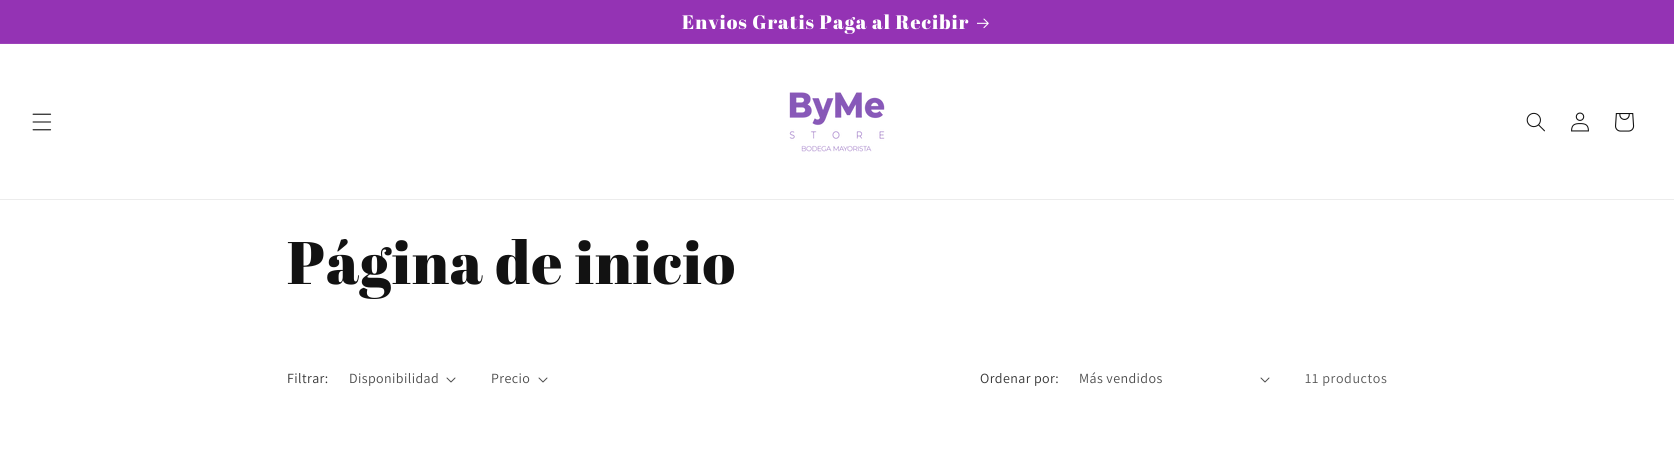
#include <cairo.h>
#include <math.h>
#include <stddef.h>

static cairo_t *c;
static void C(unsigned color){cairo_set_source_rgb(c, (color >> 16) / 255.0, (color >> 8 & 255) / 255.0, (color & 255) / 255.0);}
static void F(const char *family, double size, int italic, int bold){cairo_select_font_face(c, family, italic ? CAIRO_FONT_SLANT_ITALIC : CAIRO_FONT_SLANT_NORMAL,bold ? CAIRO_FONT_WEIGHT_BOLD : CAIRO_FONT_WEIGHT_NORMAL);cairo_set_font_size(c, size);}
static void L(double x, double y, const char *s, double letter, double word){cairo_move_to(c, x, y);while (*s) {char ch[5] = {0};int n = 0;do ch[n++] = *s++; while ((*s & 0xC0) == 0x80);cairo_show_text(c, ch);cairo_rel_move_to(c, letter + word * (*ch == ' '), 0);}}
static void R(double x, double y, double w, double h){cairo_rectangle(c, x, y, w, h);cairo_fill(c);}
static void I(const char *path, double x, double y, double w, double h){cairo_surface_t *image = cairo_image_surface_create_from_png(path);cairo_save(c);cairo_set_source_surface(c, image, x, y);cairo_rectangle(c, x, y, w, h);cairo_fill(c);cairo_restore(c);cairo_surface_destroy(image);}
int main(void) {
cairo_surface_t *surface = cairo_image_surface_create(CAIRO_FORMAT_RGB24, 1674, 465);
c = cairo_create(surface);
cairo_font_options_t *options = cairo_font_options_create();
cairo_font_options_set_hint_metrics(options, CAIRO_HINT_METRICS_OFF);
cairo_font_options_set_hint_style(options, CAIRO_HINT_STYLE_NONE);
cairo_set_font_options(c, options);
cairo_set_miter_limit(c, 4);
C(0xffffff);
cairo_paint(c);
C(0x9433b4);
R(0,0,1674,43);
C(0x9d43ba);
R(0,43,1674,1);
F("Abril Fatface",19.5,0,0);
C(0xffffff);
L(682,29,"Envios Gratis Paga al Recibir",1,0);
I("1.png",977,18,12,11);
C(0xececec);
R(0,199,1674,1);
I("2.png",32,113,20,18);
I("3.png",789,92,96,60);
I("4.png",1526,112,19,20);
I("5.png",1571,112,18,20);
I("6.png",1615,113,20,19);
F("Abril Fatface",60,0,0);
C(0x121212);
L(287,284,"Página de inicio",.9,0);
F("Assistant",14,0,0);
C(0x363636);
L(287,383,"Filtrar:",.4,0);
C(0x4d4d4d);
L(349,383,"Disponibilidad",.4,0);
I("7.png",446,377,10,6);
L(491,383,"Precio",.4,0);
I("7.png",538,377,10,6);
C(0x363636);
L(980,383,"Ordenar por:",.4,0);
C(0x4d4d4d);
L(1079,383,"Más vendidos",.4,0);
I("7.png",1260,377,10,6);
C(0x595959);
L(1305,383,"11 productos",.6,0);
cairo_surface_write_to_png(surface, "o.png");
cairo_font_options_destroy(options);
cairo_destroy(c);
cairo_surface_destroy(surface);
return 0;
}
